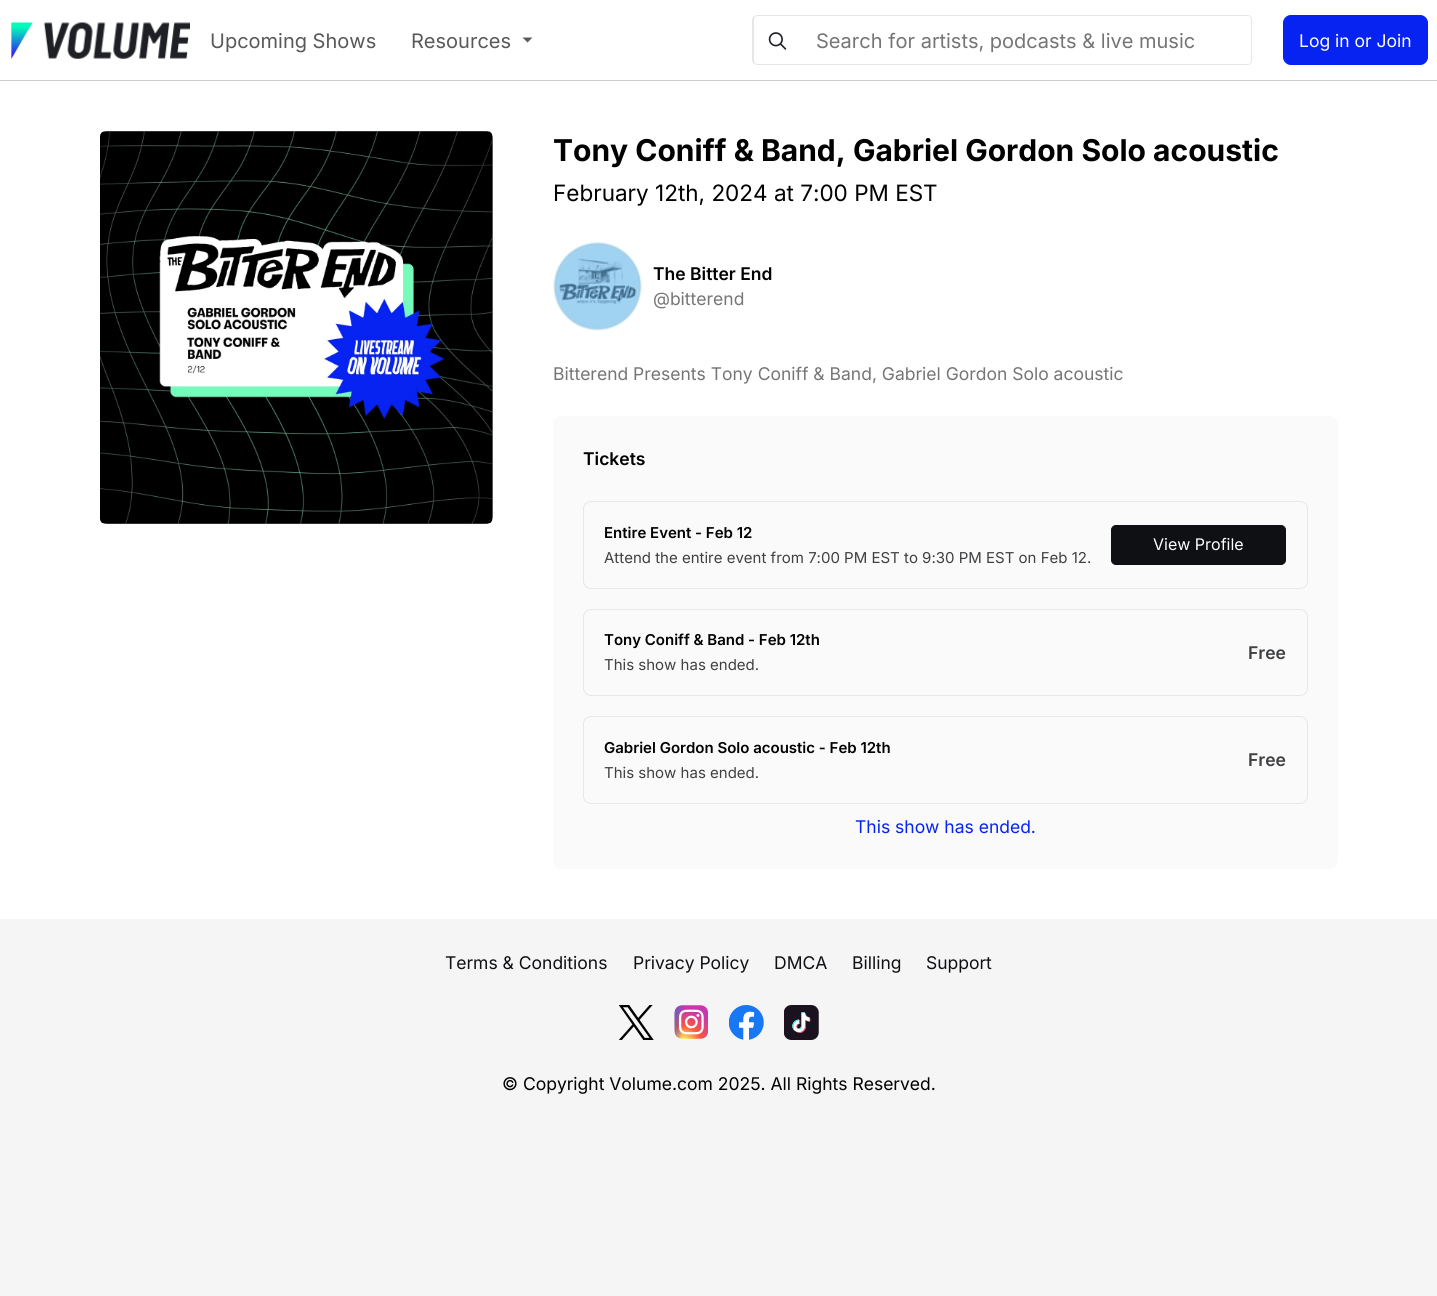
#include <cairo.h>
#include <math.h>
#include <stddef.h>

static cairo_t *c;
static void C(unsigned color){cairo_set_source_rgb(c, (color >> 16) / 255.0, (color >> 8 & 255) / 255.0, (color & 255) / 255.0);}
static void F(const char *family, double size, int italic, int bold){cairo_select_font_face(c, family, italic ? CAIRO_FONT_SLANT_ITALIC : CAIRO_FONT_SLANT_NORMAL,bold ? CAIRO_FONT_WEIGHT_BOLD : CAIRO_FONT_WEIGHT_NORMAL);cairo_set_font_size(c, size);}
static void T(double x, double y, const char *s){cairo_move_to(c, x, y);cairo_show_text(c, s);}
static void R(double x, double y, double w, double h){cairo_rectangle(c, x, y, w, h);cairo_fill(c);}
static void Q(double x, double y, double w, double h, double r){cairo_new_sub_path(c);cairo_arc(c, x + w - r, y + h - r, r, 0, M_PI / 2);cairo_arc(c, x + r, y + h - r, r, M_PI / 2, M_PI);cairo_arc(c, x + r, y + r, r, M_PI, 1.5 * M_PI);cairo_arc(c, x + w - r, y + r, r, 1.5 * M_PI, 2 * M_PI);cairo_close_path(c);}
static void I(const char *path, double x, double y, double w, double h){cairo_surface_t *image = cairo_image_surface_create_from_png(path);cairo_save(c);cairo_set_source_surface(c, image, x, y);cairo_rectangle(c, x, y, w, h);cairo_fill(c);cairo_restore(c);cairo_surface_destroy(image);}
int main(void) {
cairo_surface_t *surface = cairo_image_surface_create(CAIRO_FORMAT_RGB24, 1437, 1296);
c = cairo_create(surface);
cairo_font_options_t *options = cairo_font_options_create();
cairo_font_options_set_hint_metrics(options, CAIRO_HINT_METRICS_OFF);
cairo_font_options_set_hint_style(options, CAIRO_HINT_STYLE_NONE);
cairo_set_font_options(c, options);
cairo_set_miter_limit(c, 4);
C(0xf5f5f6);
cairo_paint(c);
C(0xffffff);
R(0,0,1437,80);
C(0xcccccc);
R(0,80,1437,1);
I("1.png",11,22,179,37);
F("Inter",20,0,0);
C(0x595959);
T(210,48,"Upcoming Shows");
T(411,48,"Resources");
cairo_new_path(c);
cairo_move_to(c,522.5,37.5);
cairo_line_to(c,532.5,37.5);
cairo_line_to(c,527.5,42.5);
cairo_close_path(c);
cairo_fill(c);
C(0xe6e6e6);
cairo_set_fill_rule(c,CAIRO_FILL_RULE_EVEN_ODD);
cairo_new_path(c);
cairo_move_to(c,758,15);
cairo_line_to(c,801,15);
cairo_line_to(c,801,65);
cairo_line_to(c,758,65);
cairo_curve_to(c,755,65,752,63,752,60);
cairo_line_to(c,752,20);
cairo_curve_to(c,752,17,755,15,758,15);
cairo_close_path(c);
cairo_move_to(c,758,16);
cairo_line_to(c,801,16);
cairo_line_to(c,801,64);
cairo_line_to(c,758,64);
cairo_curve_to(c,755,64,754,62,754,60);
cairo_line_to(c,754,20);
cairo_curve_to(c,754,18,755,16,758,16);
cairo_close_path(c);
cairo_fill(c);
I("2.png",768,32,19,18);
C(0xe7e7e7);
cairo_new_path(c);
cairo_move_to(c,801,15);
cairo_line_to(c,1248,15);
cairo_curve_to(c,1250,15,1252,17,1252,20);
cairo_line_to(c,1252,60);
cairo_curve_to(c,1252,63,1250,65,1248,65);
cairo_line_to(c,801,65);
cairo_close_path(c);
cairo_move_to(c,801,16);
cairo_line_to(c,1248,16);
cairo_curve_to(c,1250,16,1251,18,1251,20);
cairo_line_to(c,1251,60);
cairo_curve_to(c,1251,62,1250,64,1248,64);
cairo_line_to(c,801,64);
cairo_close_path(c);
cairo_fill(c);
C(0x757575);
T(816,48,"Search for artists, podcasts & live music");
C(0x0623f2);
Q(1283.5,15.5,144,49,7.5);
cairo_fill_preserve(c);
cairo_set_line_width(c,1);
cairo_stroke(c);
F("Inter",17.5,0,0);
C(0xffffff);
T(1299,47,"Log in or Join");
R(0,81,1437,838);
C(0x757575);
Q(100,131,393,393,8);
cairo_fill(c);
I("3.png",100,131,393,393);
F("Inter",30,0,1);
C(0x000000);
T(553,161,"Tony Coniff & Band, Gabriel Gordon Solo acoustic");
F("Inter",22.5,0,0);
T(553,201,"February 12th, 2024 at 7:00 PM EST");
I("4.png",553,241,89,90);
F("Inter SemiBold",17.5,0,0);
T(653,280,"The Bitter End");
F("Inter",17.5,0,0);
C(0x757575);
T(653,305,"@bitterend");
T(553,380,"Bitterend Presents Tony Coniff & Band, Gabriel Gordon Solo acoustic");
C(0xfafafa);
Q(553,416,785,453,8);
cairo_fill(c);
F("Inter SemiBold",17.5,0,0);
C(0x000000);
T(583,465,"Tickets");
Q(583.5,501.5,724,87,7.5);
C(0xe7e7e7);
cairo_stroke(c);
F("Inter SemiBold",15,0,0);
C(0x000000);
T(604,538,"Entire Event - Feb 12");
F("Inter",15,0,0);
C(0x3f4042);
T(604,563,"Attend the entire event from 7:00 PM EST to 9:30 PM EST on Feb 12.");
C(0x0f1013);
Q(1111.5,525.5,174,39,4.5);
cairo_fill_preserve(c);
cairo_stroke(c);
F("Inter",16,0,0);
C(0xffffff);
T(1153,550,"View Profile");
Q(583.5,609.5,724,86,7.5);
C(0xe7e7e7);
cairo_stroke(c);
F("Inter SemiBold",15,0,0);
C(0x000000);
T(604,645,"Tony Coniff & Band - Feb 12th");
F("Inter",15,0,0);
C(0x3f4042);
T(604,670,"This show has ended.");
F("Inter SemiBold",17.5,0,0);
T(1248,659,"Free");
Q(583.5,716.5,724,87,7.5);
C(0xe7e7e7);
cairo_stroke(c);
F("Inter SemiBold",15,0,0);
C(0x000000);
T(604,753,"Gabriel Gordon Solo acoustic - Feb 12th");
F("Inter",15,0,0);
C(0x3f4042);
T(604,778,"This show has ended.");
F("Inter SemiBold",17.5,0,0);
T(1248,766,"Free");
F("Inter",17.5,0,0);
C(0x0623f2);
T(855,833,"This show has ended.");
C(0x0f1013);
T(445,969,"Terms & Conditions");
T(633,969,"Privacy Policy");
T(774,969,"DMCA");
T(852,969,"Billing");
T(926,969,"Support");
I("5.png",619,1005,35,35);
I("6.png",674,1005,34,34);
I("7.png",729,1005,35,35);
I("8.png",784,1005,35,35);
C(0x000000);
T(502,1090,"© Copyright Volume.com 2025. All Rights Reserved.");
cairo_surface_write_to_png(surface, "o.png");
cairo_font_options_destroy(options);
cairo_destroy(c);
cairo_surface_destroy(surface);
return 0;
}
